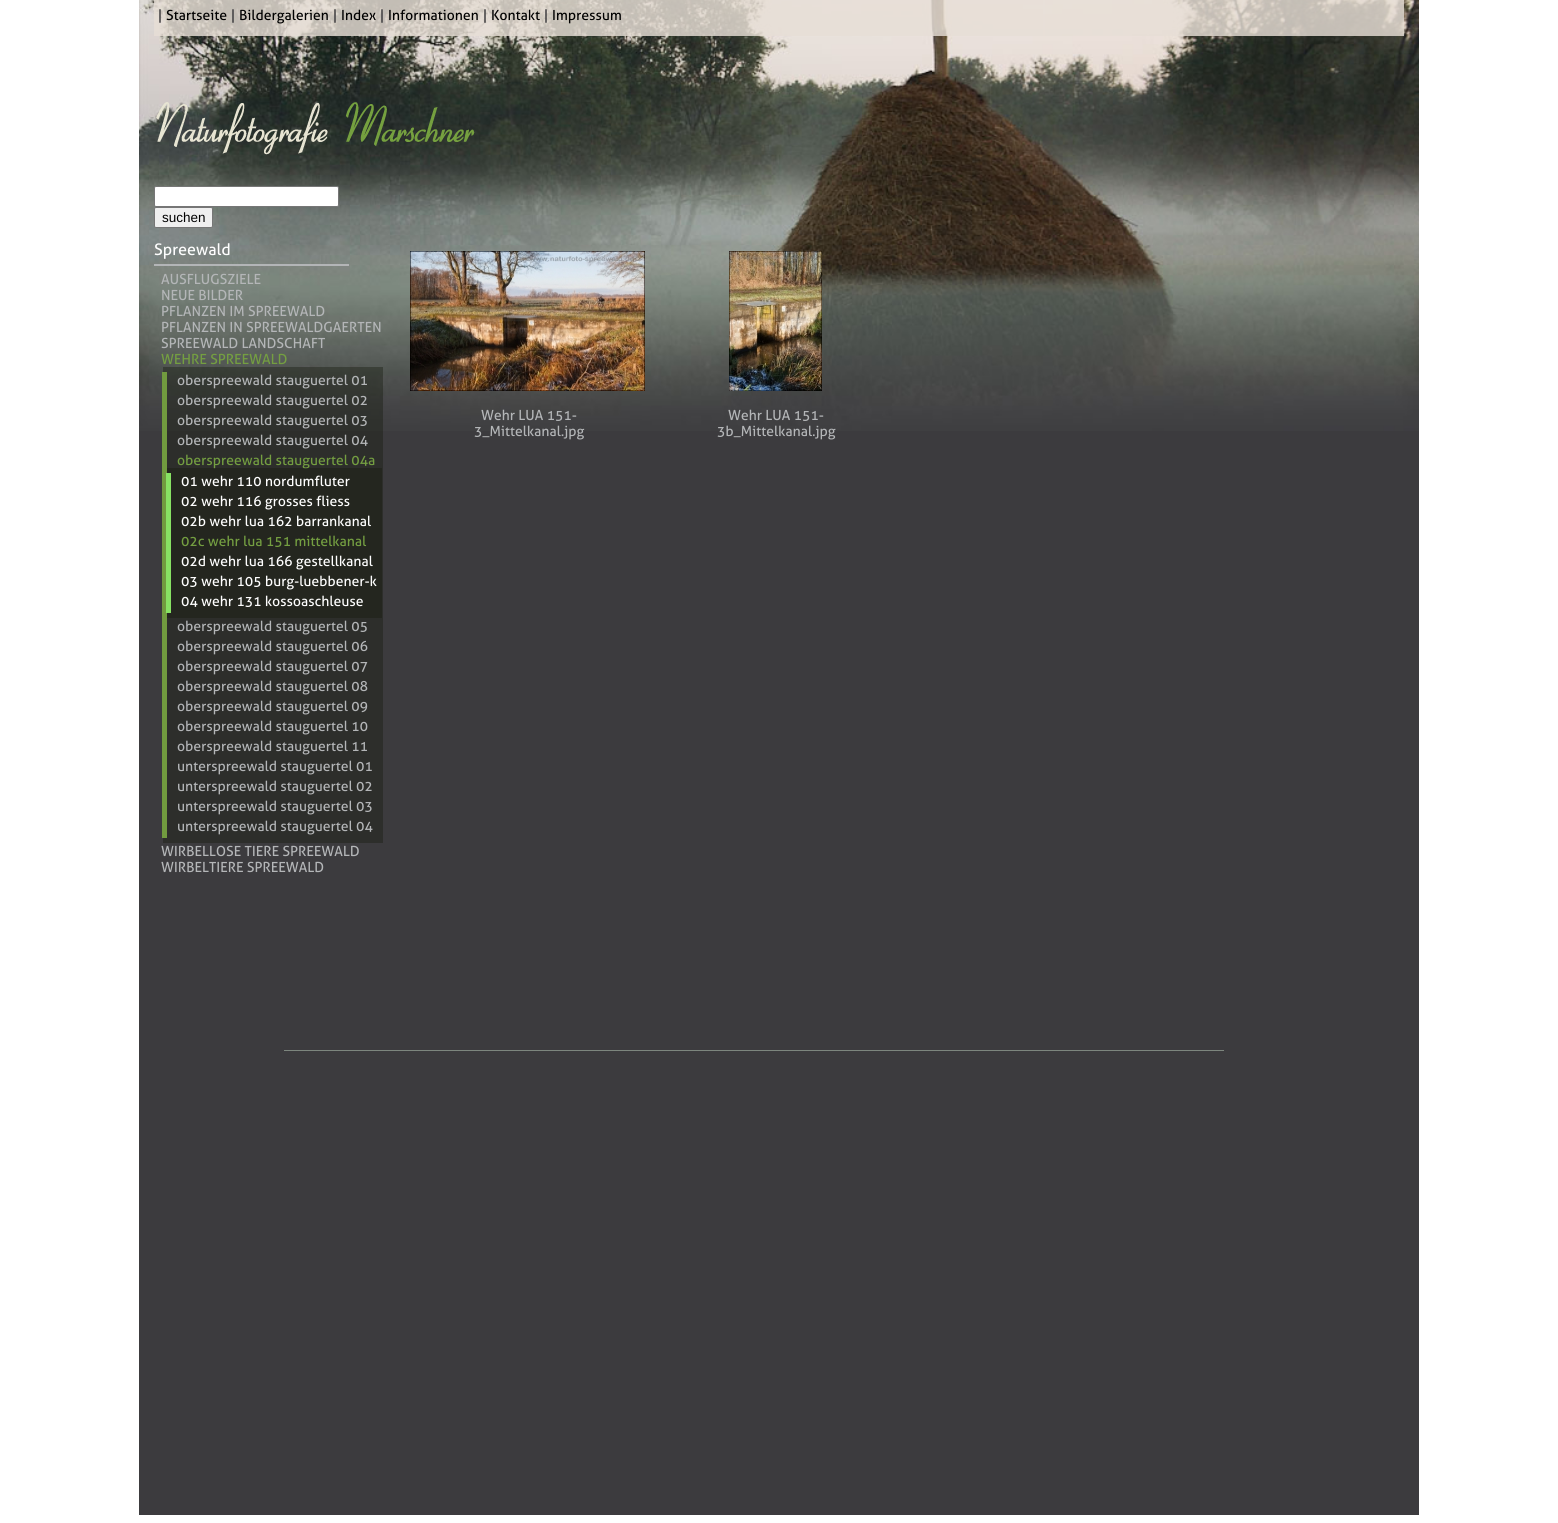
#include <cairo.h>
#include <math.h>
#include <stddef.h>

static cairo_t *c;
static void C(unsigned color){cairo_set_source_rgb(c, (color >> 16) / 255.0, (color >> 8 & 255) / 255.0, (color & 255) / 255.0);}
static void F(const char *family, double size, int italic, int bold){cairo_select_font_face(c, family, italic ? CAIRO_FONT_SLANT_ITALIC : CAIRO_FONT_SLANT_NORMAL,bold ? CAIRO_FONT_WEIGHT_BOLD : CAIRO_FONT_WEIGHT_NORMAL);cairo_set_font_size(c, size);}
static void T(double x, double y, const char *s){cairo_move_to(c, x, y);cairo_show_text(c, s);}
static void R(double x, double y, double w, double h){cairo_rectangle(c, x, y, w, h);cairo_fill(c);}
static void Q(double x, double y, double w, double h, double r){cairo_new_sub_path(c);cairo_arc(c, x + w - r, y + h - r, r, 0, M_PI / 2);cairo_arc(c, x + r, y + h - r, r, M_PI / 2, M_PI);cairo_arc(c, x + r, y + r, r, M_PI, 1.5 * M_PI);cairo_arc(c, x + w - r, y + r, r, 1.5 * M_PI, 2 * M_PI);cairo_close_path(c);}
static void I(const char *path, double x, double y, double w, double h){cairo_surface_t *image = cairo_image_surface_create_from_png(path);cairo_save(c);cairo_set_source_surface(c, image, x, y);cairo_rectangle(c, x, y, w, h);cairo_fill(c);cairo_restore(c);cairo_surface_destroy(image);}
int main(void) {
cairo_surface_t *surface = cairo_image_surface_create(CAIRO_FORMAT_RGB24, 1558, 1523);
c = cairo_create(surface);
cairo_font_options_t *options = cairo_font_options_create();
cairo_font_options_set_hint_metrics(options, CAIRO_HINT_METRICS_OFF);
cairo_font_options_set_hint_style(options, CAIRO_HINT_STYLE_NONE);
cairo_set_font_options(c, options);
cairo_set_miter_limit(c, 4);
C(0xffffff);
cairo_paint(c);
C(0x3c3b3e);
R(139,431,1280,1084);
I("1.png",139,0,1280,431);
I("2.png",154,0,1250,36);
I("3.png",159,9,2,14);
I("4.png",166,9,61,12);
I("5.png",232,9,2,14);
I("6.png",240,9,88,15);
I("7.png",334,9,2,14);
I("8.png",342,9,34,12);
I("9.png",381,9,2,14);
I("10.png",389,9,89,12);
I("11.png",484,9,2,14);
I("12.png",492,9,48,12);
I("13.png",545,9,2,14);
I("14.png",553,9,68,15);
I("15.png",156,102,319,53);
C(0xffffff);
Q(154.5,186.5,184,20,1.5);
cairo_fill_preserve(c);
C(0x767676);
cairo_set_line_width(c,1);
cairo_stroke(c);
C(0xefefef);
Q(154.5,207.5,58,20,1.5);
cairo_fill_preserve(c);
C(0x767676);
cairo_stroke(c);
F("Liberation Sans",13.5,0,0);
C(0x000000);
T(162,222,"suchen");
C(0xb3b5b7);
R(154,264,195,2);
I("16.png",154,243,76,16);
I("17.png",161,273,100,12);
I("18.png",162,289,81,12);
I("19.png",162,305,163,12);
I("20.png",162,321,219,12);
I("21.png",161,337,164,12);
I("22.png",161,353,126,12);
cairo_set_source_rgba(c,0.082,0.102,0.051,0.39);
R(163,367,220,476);
C(0x719b3f);
R(162,372,5,466);
I("23.png",177,374,190,15);
I("24.png",177,394,190,15);
I("25.png",177,414,190,15);
I("26.png",177,434,191,15);
I("27.png",177,454,198,15);
cairo_set_source_rgba(c,0.082,0.102,0.051,0.39);
R(167,468,215,150);
C(0x87e263);
R(166,473,5,140);
I("28.png",181,475,169,12);
I("29.png",181,495,169,15);
I("30.png",181,515,190,12);
I("31.png",181,535,186,12);
I("32.png",181,555,192,15);
I("33.png",181,575,196,15);
I("34.png",181,595,182,12);
I("35.png",177,620,190,15);
I("36.png",177,640,191,15);
I("37.png",177,660,191,15);
I("38.png",177,680,191,15);
I("39.png",177,700,191,15);
I("40.png",177,720,191,15);
I("41.png",177,740,190,15);
I("42.png",178,760,194,15);
I("43.png",178,780,194,15);
I("44.png",178,800,194,15);
I("45.png",178,820,195,15);
I("46.png",161,845,198,12);
I("47.png",161,861,163,12);
I("48.png",410,251,235,140);
I("49.png",481,409,96,12);
I("50.png",474,425,111,15);
I("51.png",729,251,93,140);
I("52.png",728,409,96,12);
I("53.png",717,425,119,15);
C(0x7d867e);
R(284,1050,940,1);
cairo_surface_write_to_png(surface, "o.png");
cairo_font_options_destroy(options);
cairo_destroy(c);
cairo_surface_destroy(surface);
return 0;
}
